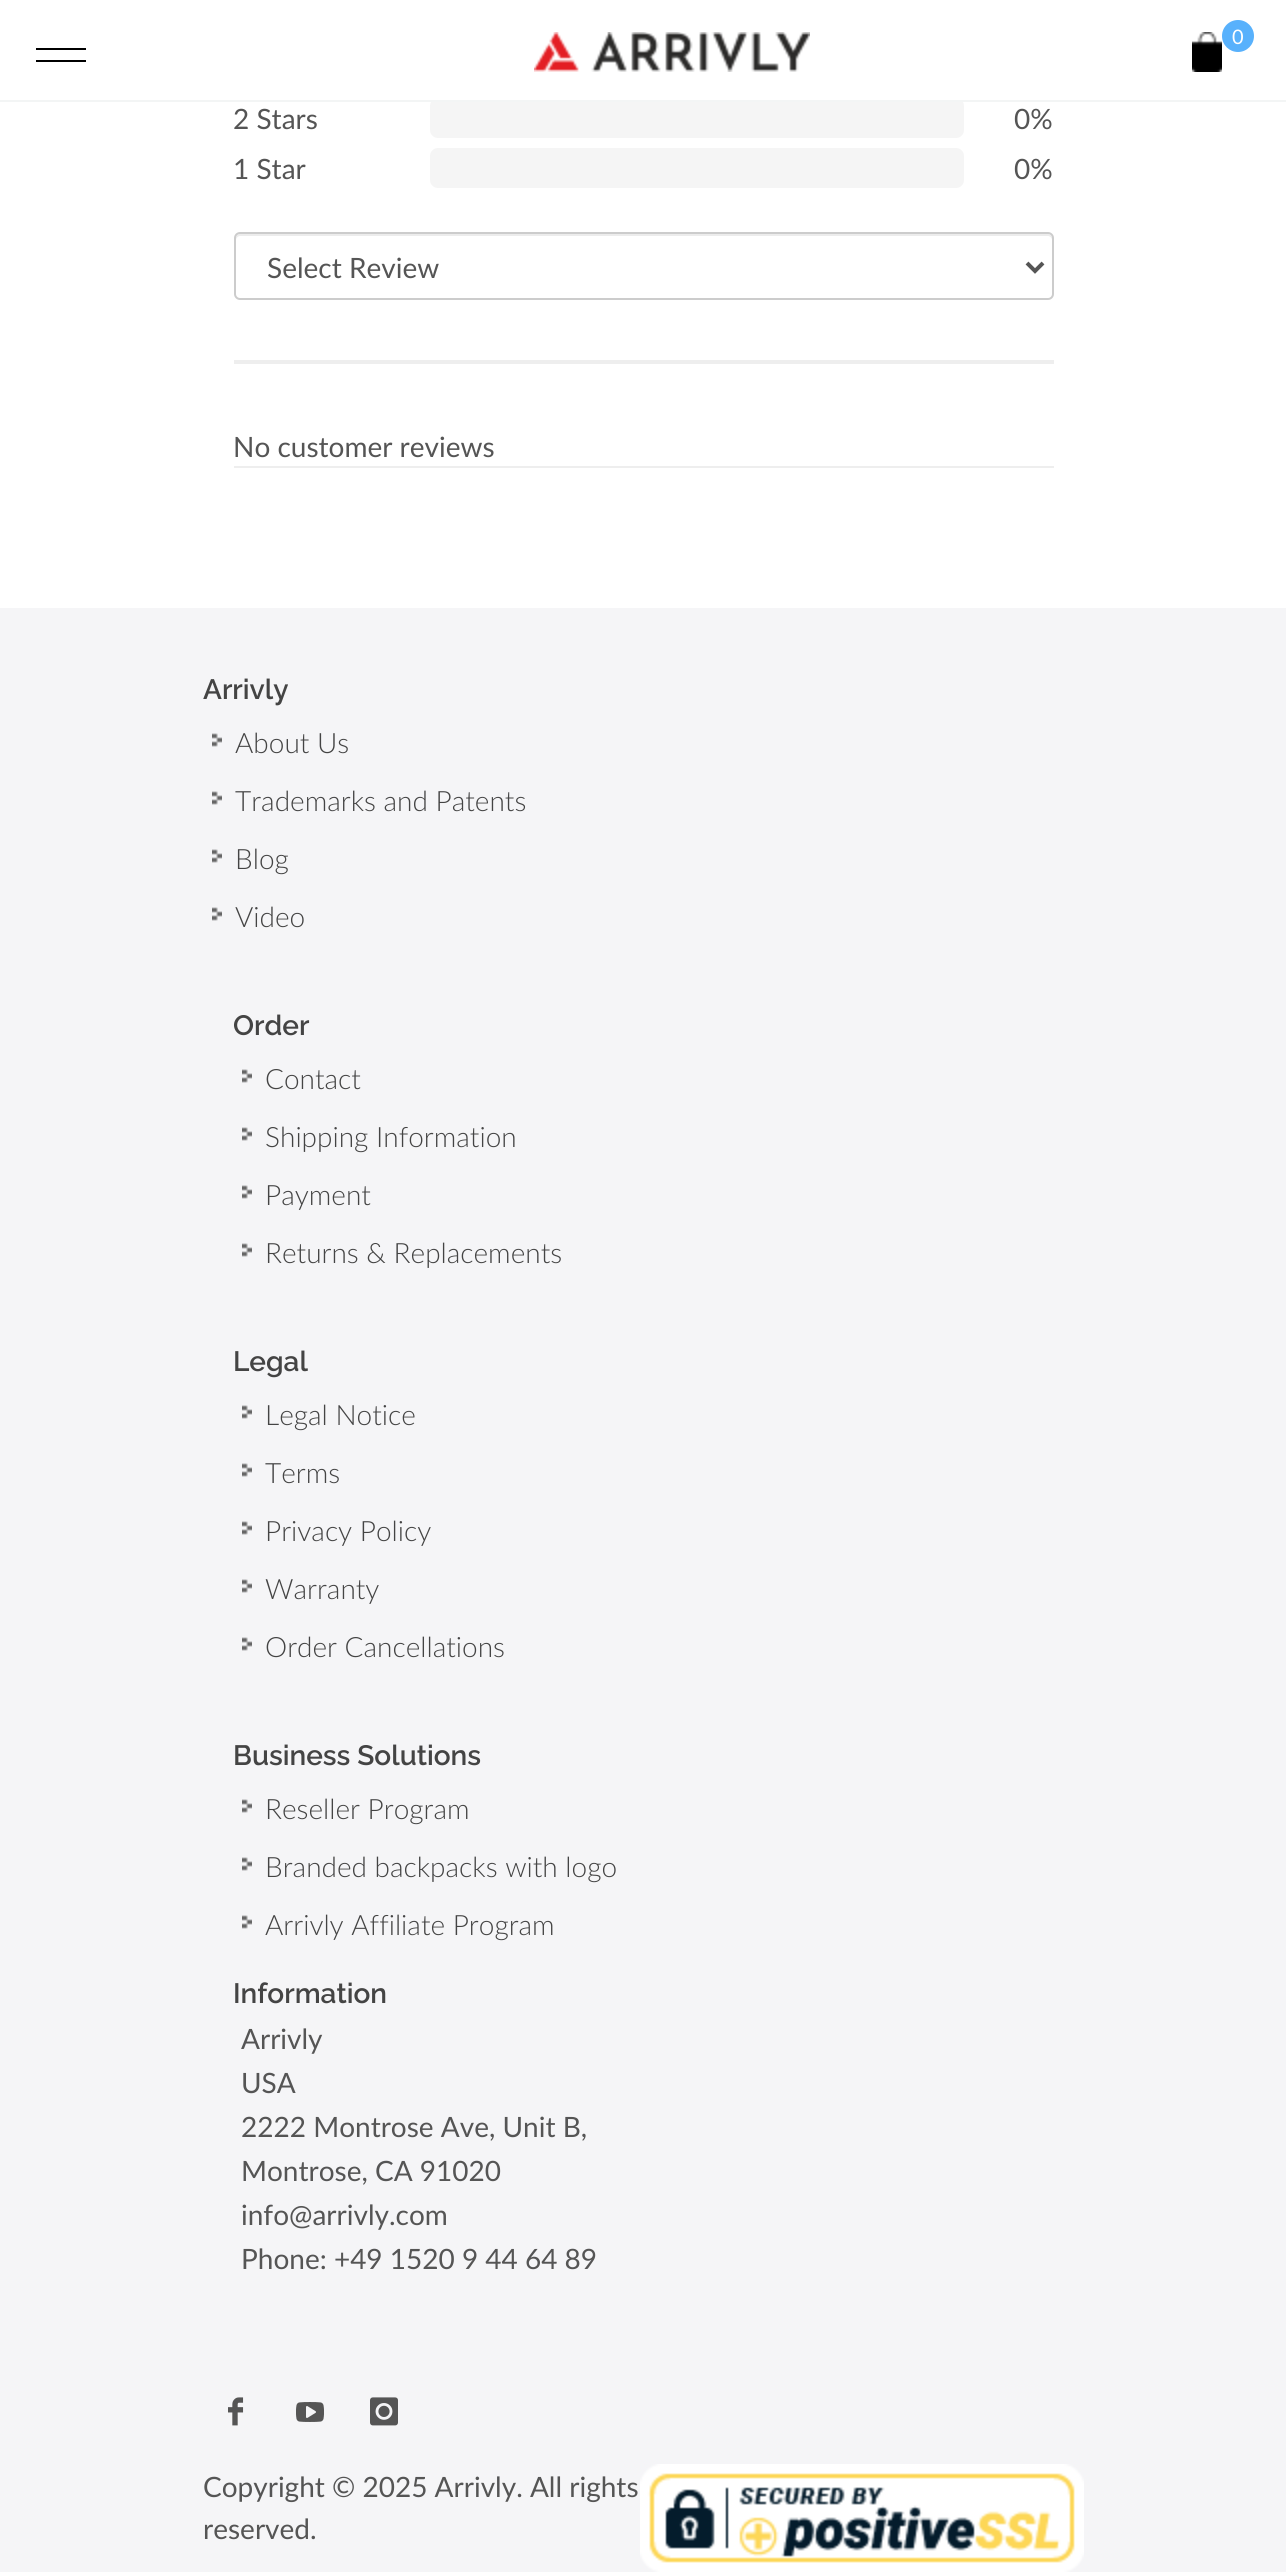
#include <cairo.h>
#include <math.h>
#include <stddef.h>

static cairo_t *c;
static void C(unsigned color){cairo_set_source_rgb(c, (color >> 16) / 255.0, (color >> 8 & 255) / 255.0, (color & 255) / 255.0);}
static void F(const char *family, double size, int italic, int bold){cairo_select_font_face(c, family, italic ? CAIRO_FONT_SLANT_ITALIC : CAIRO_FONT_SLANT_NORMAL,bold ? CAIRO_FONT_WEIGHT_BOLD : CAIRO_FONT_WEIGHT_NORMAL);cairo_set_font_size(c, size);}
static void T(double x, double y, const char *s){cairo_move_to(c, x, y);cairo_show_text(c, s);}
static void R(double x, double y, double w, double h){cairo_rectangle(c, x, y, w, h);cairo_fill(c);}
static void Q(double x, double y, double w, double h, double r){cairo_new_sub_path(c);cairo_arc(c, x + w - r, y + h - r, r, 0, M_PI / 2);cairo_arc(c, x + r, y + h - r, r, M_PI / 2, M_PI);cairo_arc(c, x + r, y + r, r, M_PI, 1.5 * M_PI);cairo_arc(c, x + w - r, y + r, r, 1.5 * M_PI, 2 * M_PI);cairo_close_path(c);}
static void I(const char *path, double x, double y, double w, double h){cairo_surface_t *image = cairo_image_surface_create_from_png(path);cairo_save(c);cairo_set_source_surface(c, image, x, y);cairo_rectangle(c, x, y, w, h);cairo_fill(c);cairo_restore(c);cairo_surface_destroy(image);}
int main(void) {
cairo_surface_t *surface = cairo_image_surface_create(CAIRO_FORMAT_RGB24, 1286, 2572);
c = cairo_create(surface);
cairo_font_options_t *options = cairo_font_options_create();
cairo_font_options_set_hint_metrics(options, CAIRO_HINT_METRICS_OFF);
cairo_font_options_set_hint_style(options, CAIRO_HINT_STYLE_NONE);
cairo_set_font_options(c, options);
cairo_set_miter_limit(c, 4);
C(0xffffff);
cairo_paint(c);
C(0xf5f5f5);
Q(430,98,534,40,8);
cairo_fill(c);
C(0xffffff);
R(433,98,528,2);
C(0xf3f5f5);
R(0,100,1286,2);
C(0x000000);
R(36,48,50,2);
R(36,60,50,2);
I("1.png",534,32,276,40);
I("2.png",1192,32,30,40);
C(0x58b1fc);
cairo_arc(c,1238,36,16,0,2 * M_PI);
cairo_fill(c);
F("Lato",20,0,0);
C(0xffffff);
T(1232,44,"0");
F("Lato",28,0,0);
C(0x555555);
T(233,129,"2 Stars");
T(1014,129,"0%");
T(233,179,"1 Star");
C(0xf5f5f5);
Q(430,148,534,40,8);
cairo_fill(c);
C(0x555555);
T(1014,179,"0%");
C(0xececec);
cairo_new_path(c);
cairo_move_to(c,240,236);
cairo_line_to(c,1048,236);
cairo_curve_to(c,1050,236,1052,238,1052,240);
cairo_line_to(c,1052,238);
cairo_curve_to(c,1052,236,1050,234,1048,234);
cairo_line_to(c,240,234);
cairo_curve_to(c,238,234,236,236,236,238);
cairo_line_to(c,236,240);
cairo_curve_to(c,236,238,238,236,240,236);
cairo_close_path(c);
cairo_fill(c);
Q(235,233,818,66,5);
C(0xcccccc);
cairo_stroke(c);
cairo_new_path(c);
cairo_move_to(c,1027,263);
cairo_line_to(c,1035,271);
cairo_line_to(c,1043,263);
C(0x555555);
cairo_set_line_width(c,4);
cairo_stroke(c);
T(267,278,"Select Review");
C(0xeeeeee);
R(234,360,820,4);
R(234,466,820,2);
C(0x555555);
T(233,457,"No customer reviews");
C(0xf5f5f7);
R(0,608,1286,1964);
F("Raleway SemiBold",28,0,0);
C(0x444444);
T(203,699,"Arrivly");
I("3.png",212,733,10,14);
F("Lato Light",28,0,0);
T(235,753,"About Us");
I("3.png",212,791,10,14);
T(235,811,"Trademarks and Patents");
I("3.png",212,849,10,14);
T(235,869,"Blog");
I("3.png",212,907,10,14);
T(235,927,"Video");
F("Raleway SemiBold",28,0,0);
T(233,1035,"Order");
I("3.png",242,1069,10,14);
F("Lato Light",28,0,0);
T(265,1089,"Contact");
I("3.png",242,1127,10,14);
T(265,1147,"Shipping Information");
I("3.png",242,1185,10,14);
T(265,1205,"Payment");
I("3.png",242,1243,10,14);
T(265,1263,"Returns & Replacements");
F("Raleway SemiBold",28,0,0);
T(233,1371,"Legal");
I("3.png",242,1405,10,14);
F("Lato Light",28,0,0);
T(265,1425,"Legal Notice");
I("3.png",242,1463,10,14);
T(265,1483,"Terms");
I("3.png",242,1521,10,14);
T(265,1541,"Privacy Policy");
I("3.png",242,1579,10,14);
T(265,1599,"Warranty");
I("3.png",242,1637,10,14);
T(265,1657,"Order Cancellations");
F("Raleway SemiBold",28,0,0);
T(233,1765,"Business Solutions");
I("3.png",242,1799,10,14);
F("Lato Light",28,0,0);
T(265,1819,"Reseller Program");
I("3.png",242,1857,10,14);
T(265,1877,"Branded backpacks with logo");
I("3.png",242,1915,10,14);
T(265,1935,"Arrivly Affiliate Program");
F("Raleway SemiBold",28,0,0);
T(233,2003,"Information");
F("Lato",28,0,0);
C(0x555555);
T(241,2049,"Arrivly");
T(241,2093,"USA");
T(241,2137,"2222 Montrose Ave, Unit B,");
T(241,2181,"Montrose, CA 91020");
T(241,2225,"info@arrivly.com");
T(241,2269,"Phone: +49 1520 9 44 64 89");
I("4.png",228,2397,16,29);
I("5.png",296,2402,28,20);
I("6.png",370,2397,28,29);
T(203,2497,"Copyright © 2025 Arrivly. All rights");
T(203,2539,"reserved.");
I("7.png",640,2464,444,108);
cairo_surface_write_to_png(surface, "o.png");
cairo_font_options_destroy(options);
cairo_destroy(c);
cairo_surface_destroy(surface);
return 0;
}
